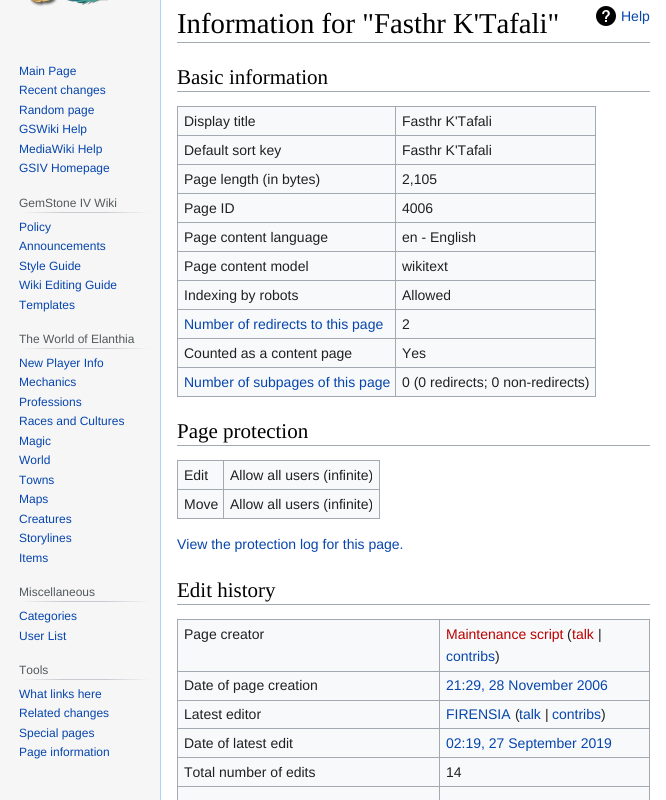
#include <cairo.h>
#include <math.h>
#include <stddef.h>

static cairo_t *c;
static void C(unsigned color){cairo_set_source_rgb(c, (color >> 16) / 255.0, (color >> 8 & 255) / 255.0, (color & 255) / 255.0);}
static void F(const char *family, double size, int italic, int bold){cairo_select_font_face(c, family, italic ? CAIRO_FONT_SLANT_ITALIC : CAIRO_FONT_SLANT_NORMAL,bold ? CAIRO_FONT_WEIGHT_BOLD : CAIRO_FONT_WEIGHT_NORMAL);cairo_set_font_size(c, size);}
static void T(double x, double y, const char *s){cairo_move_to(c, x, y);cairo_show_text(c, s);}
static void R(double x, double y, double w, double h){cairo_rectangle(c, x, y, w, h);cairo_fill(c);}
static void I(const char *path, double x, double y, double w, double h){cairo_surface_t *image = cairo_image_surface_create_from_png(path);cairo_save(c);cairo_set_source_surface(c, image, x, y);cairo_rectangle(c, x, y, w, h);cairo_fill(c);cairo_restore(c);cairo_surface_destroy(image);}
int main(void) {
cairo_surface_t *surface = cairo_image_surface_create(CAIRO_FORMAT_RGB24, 666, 800);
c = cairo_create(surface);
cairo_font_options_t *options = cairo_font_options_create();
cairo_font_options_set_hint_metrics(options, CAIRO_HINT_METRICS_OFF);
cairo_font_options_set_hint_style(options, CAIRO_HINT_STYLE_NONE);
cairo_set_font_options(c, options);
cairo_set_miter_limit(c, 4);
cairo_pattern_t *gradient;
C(0xf6f6f6);
cairo_paint(c);
I("1.png",30,0,78,7);
F("Liberation Sans",12,0,0);
C(0x0645ad);
T(19,75,"Main Page");
T(19,94,"Recent changes");
T(19,114,"Random page");
T(19,133,"GSWiki Help");
T(19,153,"MediaWiki Help");
T(19,172,"GSIV Homepage");
gradient = cairo_pattern_create_linear(19,213,150,213);
cairo_pattern_add_color_stop_rgba(gradient,0,0.965,0.965,0.965,1);
cairo_pattern_add_color_stop_rgba(gradient,.33,0.784,0.8,0.82,1);
cairo_pattern_add_color_stop_rgba(gradient,.66,0.784,0.8,0.82,1);
cairo_pattern_add_color_stop_rgba(gradient,1,0.965,0.965,0.965,1);
cairo_set_source(c,gradient);
cairo_pattern_destroy(gradient);
R(19,212,131,1);
C(0x54595d);
T(19,207,"GemStone IV Wiki");
C(0x0645ad);
T(19,231,"Policy");
T(19,250,"Announcements");
T(19,270,"Style Guide");
T(19,289,"Wiki Editing Guide");
T(19,309,"Templates");
gradient = cairo_pattern_create_linear(19,349,150,349);
cairo_pattern_add_color_stop_rgba(gradient,0,0.965,0.965,0.965,1);
cairo_pattern_add_color_stop_rgba(gradient,.33,0.784,0.8,0.82,1);
cairo_pattern_add_color_stop_rgba(gradient,.66,0.784,0.8,0.82,1);
cairo_pattern_add_color_stop_rgba(gradient,1,0.965,0.965,0.965,1);
cairo_set_source(c,gradient);
cairo_pattern_destroy(gradient);
R(19,348,131,1);
C(0x54595d);
T(19,343,"The World of Elanthia");
C(0x0645ad);
T(19,367,"New Player Info");
T(19,386,"Mechanics");
T(19,406,"Professions");
T(19,425,"Races and Cultures");
T(19,445,"Magic");
T(19,464,"World");
T(19,484,"Towns");
T(19,503,"Maps");
T(19,523,"Creatures");
T(19,542,"Storylines");
T(19,562,"Items");
gradient = cairo_pattern_create_linear(19,602,150,602);
cairo_pattern_add_color_stop_rgba(gradient,0,0.965,0.965,0.965,1);
cairo_pattern_add_color_stop_rgba(gradient,.33,0.784,0.8,0.82,1);
cairo_pattern_add_color_stop_rgba(gradient,.66,0.784,0.8,0.82,1);
cairo_pattern_add_color_stop_rgba(gradient,1,0.965,0.965,0.965,1);
cairo_set_source(c,gradient);
cairo_pattern_destroy(gradient);
R(19,601,131,1);
C(0x54595d);
T(19,596,"Miscellaneous");
C(0x0645ad);
T(19,620,"Categories");
T(19,640,"User List");
gradient = cairo_pattern_create_linear(19,680,150,680);
cairo_pattern_add_color_stop_rgba(gradient,0,0.965,0.965,0.965,1);
cairo_pattern_add_color_stop_rgba(gradient,.33,0.784,0.8,0.82,1);
cairo_pattern_add_color_stop_rgba(gradient,.66,0.784,0.8,0.82,1);
cairo_pattern_add_color_stop_rgba(gradient,1,0.965,0.965,0.965,1);
cairo_set_source(c,gradient);
cairo_pattern_destroy(gradient);
R(19,679,131,1);
C(0x54595d);
T(19,674,"Tools");
C(0x0645ad);
T(19,698,"What links here");
T(19,717,"Related changes");
T(19,737,"Special pages");
T(19,756,"Page information");
C(0xffffff);
R(161,0,505,800);
C(0xa7d7f9);
R(160,0,1,800);
C(0xa2a9b1);
R(177,42,473,1);
F("Liberation Serif",28.75,0,0);
C(0x000000);
T(177,33,"Information for \"Fasthr K'Tafali\"");
I("2.png",596,6,20,20);
F("Liberation Sans",14,0,0);
C(0x0645ad);
T(621,21,"Help");
C(0xa2a9b1);
R(177,91,473,1);
F("Liberation Serif",21,0,0);
C(0x000000);
T(177,84,"Basic information");
C(0xf8f9fa);
R(178,107,417,289);
C(0xa2a9b1);
R(177,106,419,1);
R(595,106,1,291);
R(177,396,419,1);
R(177,106,1,291);
F("Liberation Sans",14,0,0);
C(0x202122);
T(184,126,"Display title");
C(0xa2a9b1);
R(395,135,201,1);
R(395,164,201,1);
R(395,193,201,1);
R(395,222,201,1);
R(395,251,201,1);
R(395,280,201,1);
R(395,309,201,1);
R(395,338,201,1);
R(395,367,201,1);
R(395,367,1,30);
R(177,367,219,1);
R(395,338,1,30);
R(177,338,219,1);
R(395,309,1,30);
R(177,309,219,1);
R(395,280,1,30);
R(177,280,219,1);
R(395,251,1,30);
R(177,251,219,1);
R(395,222,1,30);
R(177,222,219,1);
R(395,193,1,30);
R(177,193,219,1);
R(395,164,1,30);
R(177,164,219,1);
R(395,135,1,30);
R(177,135,219,1);
R(395,106,1,30);
C(0x202122);
T(402,126,"Fasthr K'Tafali");
T(184,155,"Default sort key");
T(402,155,"Fasthr K'Tafali");
T(184,184,"Page length (in bytes)");
T(402,184,"2,105");
T(184,213,"Page ID");
T(402,213,"4006");
T(184,242,"Page content language");
T(402,242,"en - English");
T(184,271,"Page content model");
T(402,271,"wikitext");
T(184,300,"Indexing by robots");
T(402,300,"Allowed");
C(0x0645ad);
T(184,329,"Number of redirects to this page");
C(0x202122);
T(402,329,"2");
T(184,358,"Counted as a content page");
T(402,358,"Yes");
C(0x0645ad);
T(184,387,"Number of subpages of this page");
C(0x202122);
T(402,387,"0 (0 redirects; 0 non-redirects)");
C(0xa2a9b1);
R(177,445,473,1);
F("Liberation Serif",21,0,0);
C(0x000000);
T(177,438,"Page protection");
C(0xf8f9fa);
R(178,461,201,57);
C(0xa2a9b1);
R(177,460,203,1);
R(379,460,1,59);
R(177,518,203,1);
R(177,460,1,59);
F("Liberation Sans",14,0,0);
C(0x202122);
T(184,480,"Edit");
C(0xa2a9b1);
R(223,489,157,1);
R(223,489,1,30);
R(177,489,47,1);
R(223,460,1,30);
C(0x202122);
T(230,480,"Allow all users (infinite)");
T(184,509,"Move");
T(230,509,"Allow all users (infinite)");
C(0x0645ad);
T(177,549,"View the protection log for this page.");
C(0xa2a9b1);
R(177,604,473,1);
F("Liberation Serif",21,0,0);
C(0x000000);
T(177,597,"Edit history");
C(0xf8f9fa);
R(178,620,471,180);
C(0xa2a9b1);
R(177,619,473,1);
R(649,619,1,181);
R(177,619,1,181);
F("Liberation Sans",14,0,0);
C(0x202122);
T(184,639,"Page creator");
C(0xa2a9b1);
R(439,671,211,1);
R(439,700,211,1);
R(439,728,211,1);
R(439,757,211,1);
R(439,786,211,1);
R(439,786,1,14);
R(177,786,263,1);
R(439,757,1,30);
R(177,757,263,1);
R(439,728,1,30);
R(177,728,263,1);
R(439,700,1,29);
R(177,700,263,1);
R(439,671,1,30);
R(177,671,263,1);
R(439,619,1,53);
C(0xba0000);
T(446,639,"Maintenance script");
C(0x202122);
T(567,639,"(");
C(0xba0000);
T(572,639,"talk");
C(0x202122);
T(598,639,"|");
C(0x0645ad);
T(446,661,"contribs");
C(0x202122);
T(495,661,")");
T(184,690,"Date of page creation");
C(0x0645ad);
T(446,690,"21:29, 28 November 2006");
C(0x202122);
T(184,719,"Latest editor");
C(0x0645ad);
T(446,719,"FIRENSIA");
C(0x202122);
T(515,719,"(");
C(0x0645ad);
T(519,719,"talk");
C(0x202122);
T(545,719,"|");
C(0x0645ad);
T(552,719,"contribs");
C(0x202122);
T(601,719,")");
T(184,748,"Date of latest edit");
C(0x0645ad);
T(446,748,"02:19, 27 September 2019");
C(0x202122);
T(184,777,"Total number of edits");
T(446,777,"14");
cairo_surface_write_to_png(surface, "o.png");
cairo_font_options_destroy(options);
cairo_destroy(c);
cairo_surface_destroy(surface);
return 0;
}
